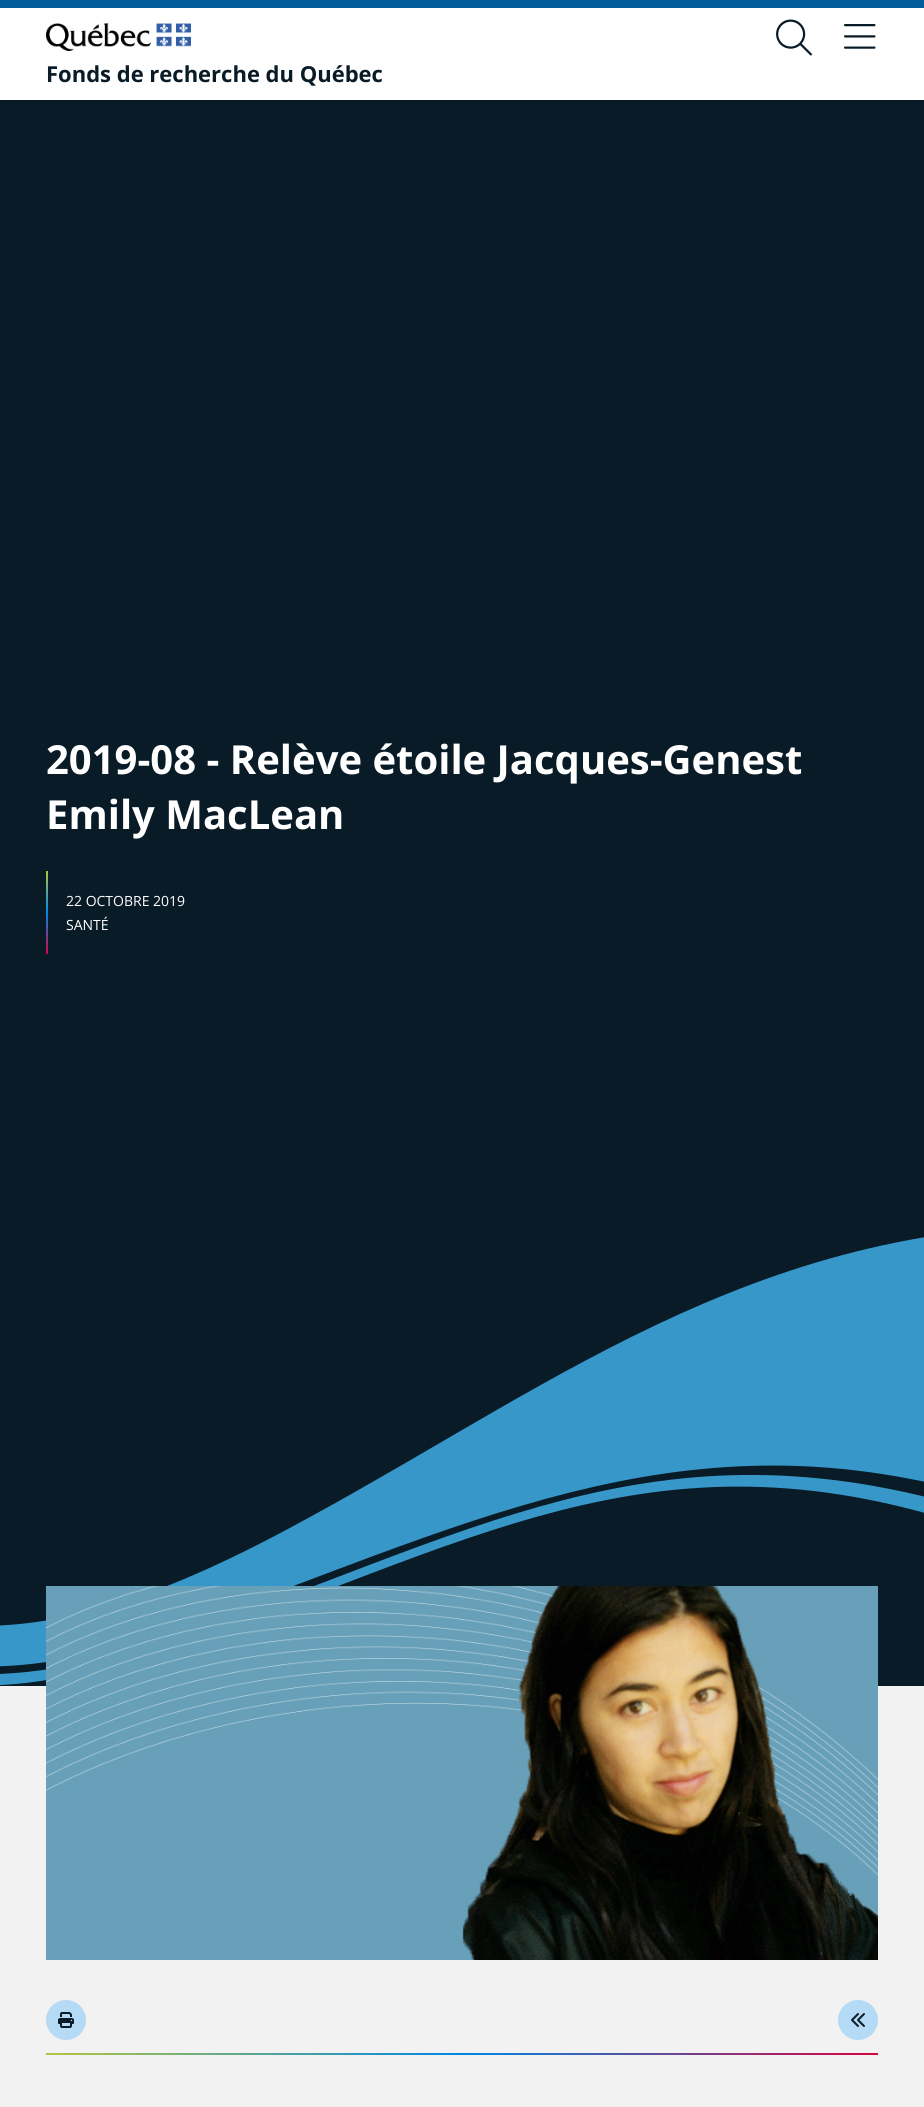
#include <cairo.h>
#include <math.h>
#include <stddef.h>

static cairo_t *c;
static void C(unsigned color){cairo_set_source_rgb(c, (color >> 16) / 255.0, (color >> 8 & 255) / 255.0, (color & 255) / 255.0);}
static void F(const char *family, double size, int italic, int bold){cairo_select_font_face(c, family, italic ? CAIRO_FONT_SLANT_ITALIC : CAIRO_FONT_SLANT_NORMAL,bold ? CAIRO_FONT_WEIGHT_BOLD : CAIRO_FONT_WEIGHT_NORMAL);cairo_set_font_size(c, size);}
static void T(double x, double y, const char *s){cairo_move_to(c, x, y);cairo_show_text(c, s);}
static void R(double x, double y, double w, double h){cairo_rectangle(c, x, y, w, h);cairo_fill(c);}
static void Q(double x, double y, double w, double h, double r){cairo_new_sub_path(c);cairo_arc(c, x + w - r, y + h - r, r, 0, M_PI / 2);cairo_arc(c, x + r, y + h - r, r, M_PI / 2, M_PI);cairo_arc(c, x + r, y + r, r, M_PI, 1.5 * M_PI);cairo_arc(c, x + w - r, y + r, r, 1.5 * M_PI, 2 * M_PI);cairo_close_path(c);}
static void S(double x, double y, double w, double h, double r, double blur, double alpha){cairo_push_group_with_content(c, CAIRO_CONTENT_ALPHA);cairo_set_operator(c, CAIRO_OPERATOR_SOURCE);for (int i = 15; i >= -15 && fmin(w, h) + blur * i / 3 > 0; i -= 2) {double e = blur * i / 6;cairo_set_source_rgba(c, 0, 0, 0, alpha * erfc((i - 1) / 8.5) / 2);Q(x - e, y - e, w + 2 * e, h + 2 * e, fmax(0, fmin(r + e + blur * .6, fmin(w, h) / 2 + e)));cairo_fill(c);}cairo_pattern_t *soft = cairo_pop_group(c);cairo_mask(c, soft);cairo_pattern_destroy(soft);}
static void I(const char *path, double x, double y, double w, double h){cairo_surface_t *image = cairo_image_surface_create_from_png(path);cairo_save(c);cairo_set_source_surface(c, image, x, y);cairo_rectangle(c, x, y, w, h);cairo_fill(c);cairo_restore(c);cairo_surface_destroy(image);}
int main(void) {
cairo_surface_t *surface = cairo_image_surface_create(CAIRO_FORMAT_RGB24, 924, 2107);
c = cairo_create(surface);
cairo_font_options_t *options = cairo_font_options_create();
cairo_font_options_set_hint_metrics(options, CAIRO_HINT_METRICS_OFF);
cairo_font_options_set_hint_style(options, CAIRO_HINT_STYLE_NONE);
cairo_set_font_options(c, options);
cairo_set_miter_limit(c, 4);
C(0xf2f2f2);
cairo_paint(c);
C(0x091b27);
R(0,100,924,1586);
C(0x000000);
S(0,0,924,100,0,2.5,.1);
C(0x015c9a);
R(0,0,924,8);
C(0xffffff);
R(0,8,924,92);
I("1.png",776,19,36,37);
I("2.png",844,24,32,25);
I("3.png",46,23,145,28);
F("Open Sans",22,0,1);
C(0x091b27);
T(46,82,"Fonds de recherche du Québec");
F("Open Sans",40,0,1);
C(0xffffff);
T(46,774,"2019-08 - Relève étoile Jacques-Genest");
T(46,829,"Emily MacLean");
I("4.png",46,871,2,83);
F("Open Sans",14,0,0);
T(66,906,"22 OCTOBRE 2019");
T(66,930,"SANTÉ");
C(0x3797c8);
cairo_new_path(c);
cairo_move_to(c,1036,1531);
cairo_line_to(c,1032,1549);
cairo_line_to(c,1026,1547);
cairo_curve_to(c,692,1415,512,1525,213,1633);
cairo_curve_to(c,-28,1720,-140,1714,-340,1498);
cairo_curve_to(c,-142,1697,-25,1710,215,1623);
cairo_curve_to(c,512,1516,695,1405,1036,1531);
cairo_close_path(c);
cairo_fill(c);
cairo_new_path(c);
cairo_move_to(c,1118,1226);
cairo_line_to(c,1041,1516);
cairo_line_to(c,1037,1514);
cairo_curve_to(c,721,1401,509,1507,216,1615);
cairo_curve_to(c,-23,1703,-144,1689,-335,1488);
cairo_curve_to(c,-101,1690,79,1644,310,1517);
cairo_curve_to(c,563,1379,775,1210,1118,1226);
cairo_close_path(c);
cairo_fill(c);
I("5.png",46,1586,832,374);
C(0xb4daf5);
cairo_arc(c,66,2020,20,0,2 * M_PI);
cairo_fill(c);
I("6.png",58,2012,16,16);
cairo_arc(c,858,2020,20,0,2 * M_PI);
cairo_fill(c);
I("7.png",851,2013,14,14);
I("8.png",46,2053,832,2);
cairo_surface_write_to_png(surface, "o.png");
cairo_font_options_destroy(options);
cairo_destroy(c);
cairo_surface_destroy(surface);
return 0;
}
